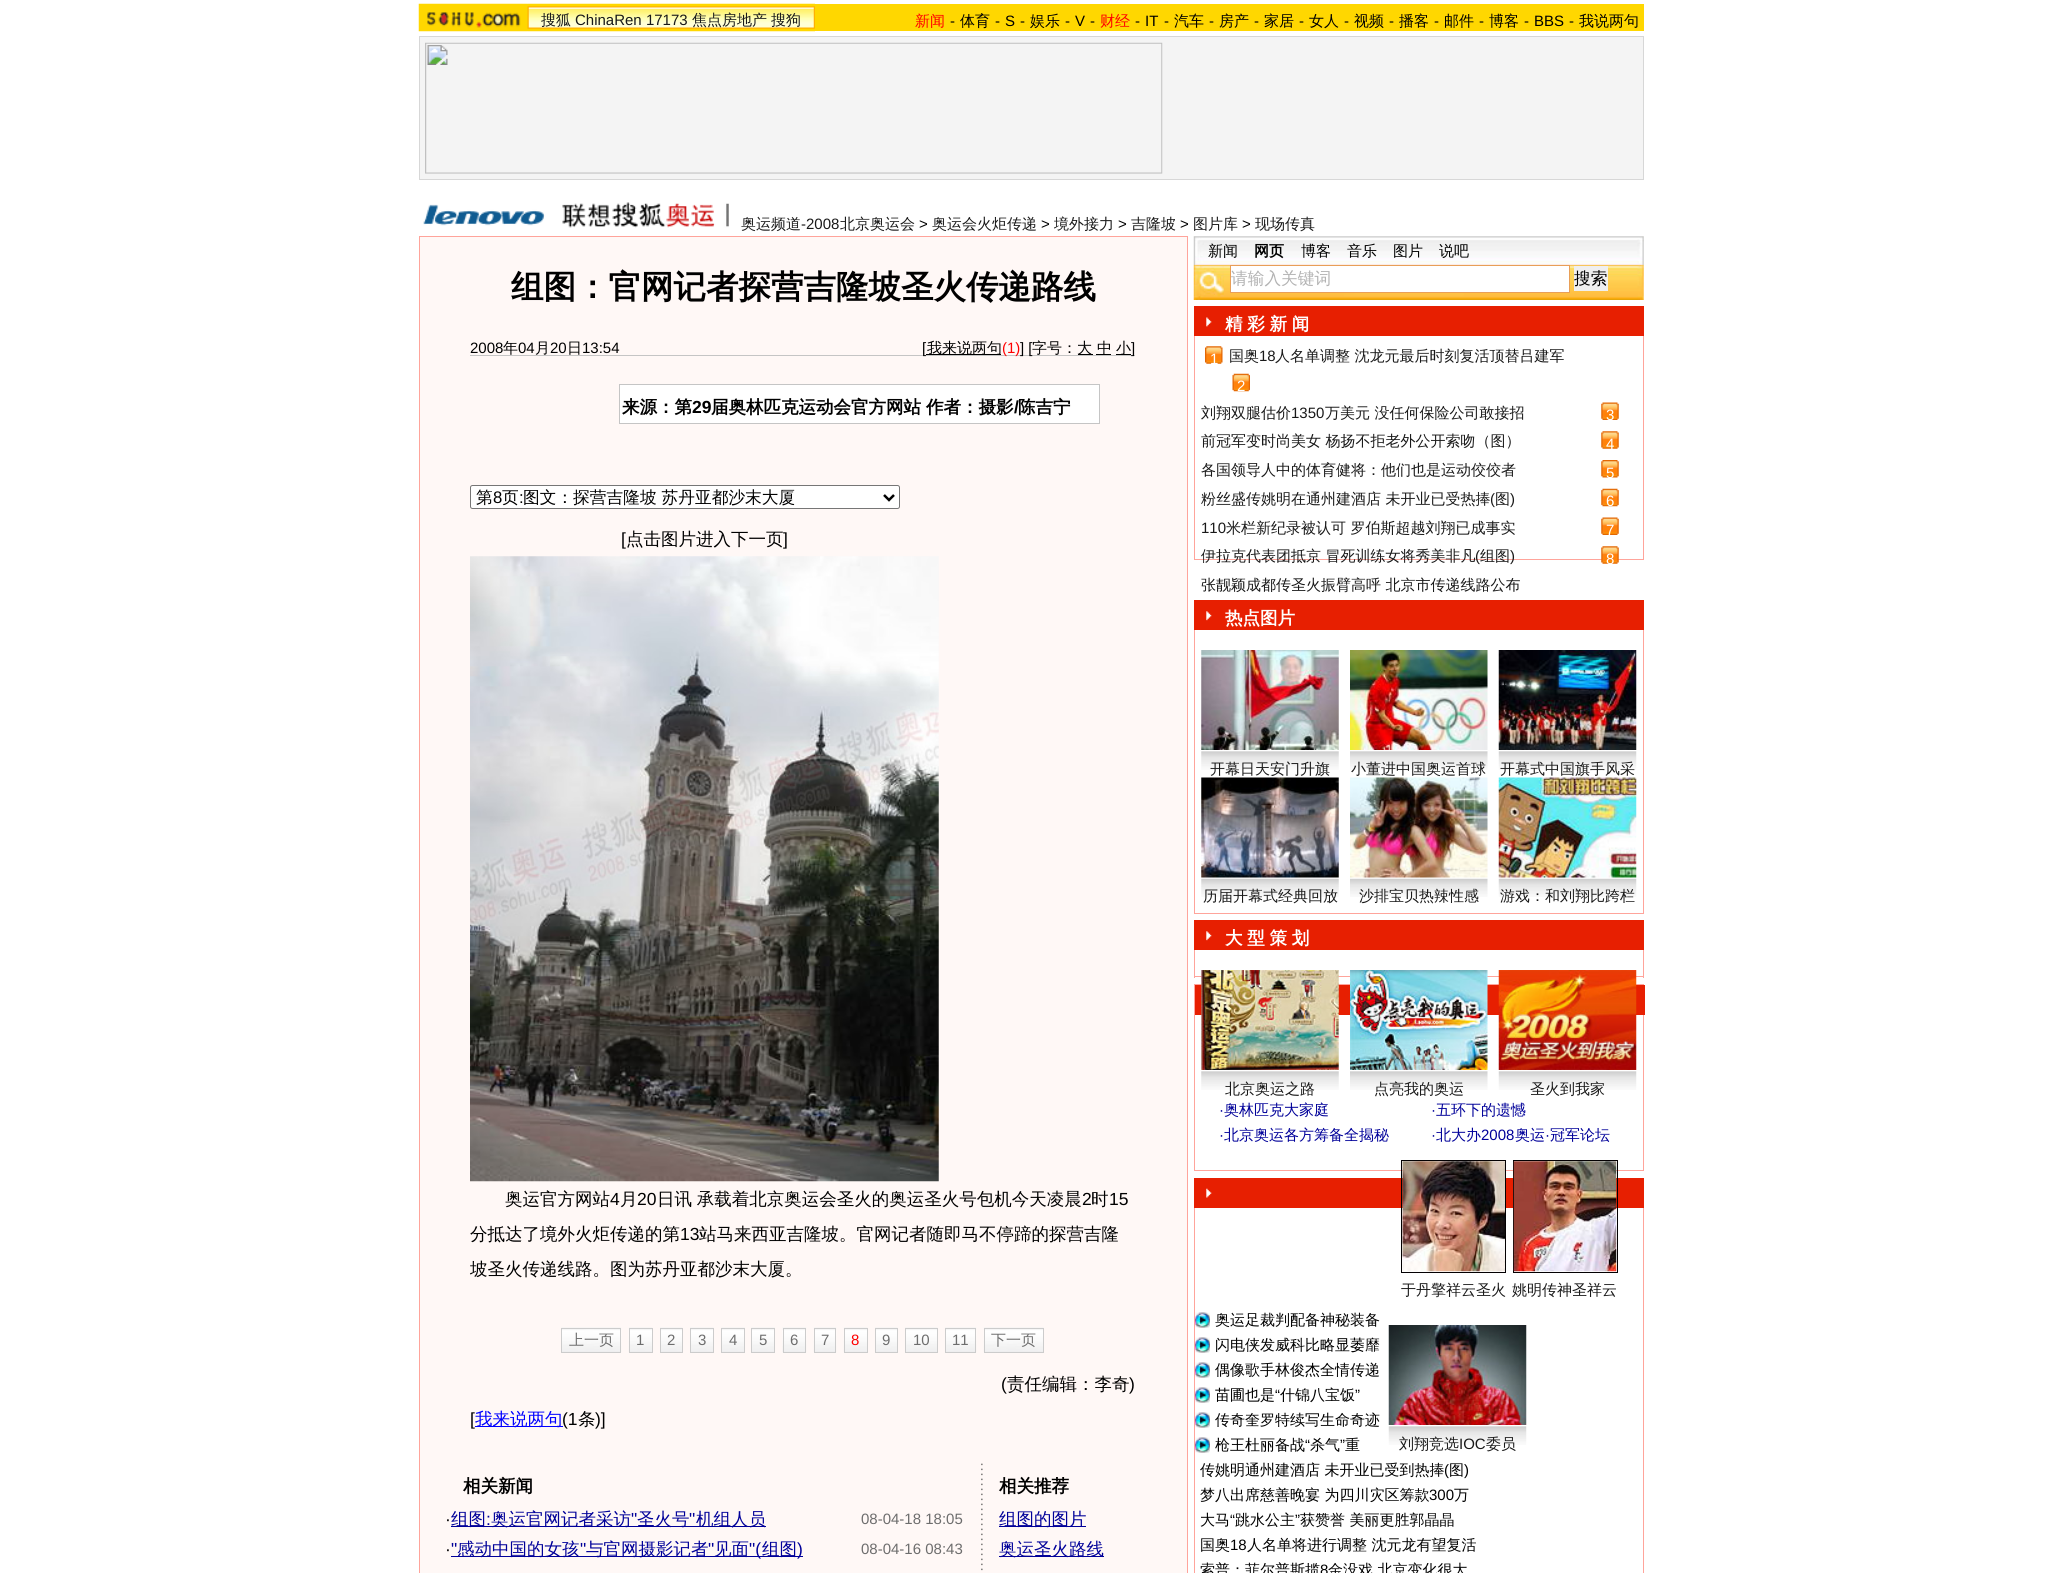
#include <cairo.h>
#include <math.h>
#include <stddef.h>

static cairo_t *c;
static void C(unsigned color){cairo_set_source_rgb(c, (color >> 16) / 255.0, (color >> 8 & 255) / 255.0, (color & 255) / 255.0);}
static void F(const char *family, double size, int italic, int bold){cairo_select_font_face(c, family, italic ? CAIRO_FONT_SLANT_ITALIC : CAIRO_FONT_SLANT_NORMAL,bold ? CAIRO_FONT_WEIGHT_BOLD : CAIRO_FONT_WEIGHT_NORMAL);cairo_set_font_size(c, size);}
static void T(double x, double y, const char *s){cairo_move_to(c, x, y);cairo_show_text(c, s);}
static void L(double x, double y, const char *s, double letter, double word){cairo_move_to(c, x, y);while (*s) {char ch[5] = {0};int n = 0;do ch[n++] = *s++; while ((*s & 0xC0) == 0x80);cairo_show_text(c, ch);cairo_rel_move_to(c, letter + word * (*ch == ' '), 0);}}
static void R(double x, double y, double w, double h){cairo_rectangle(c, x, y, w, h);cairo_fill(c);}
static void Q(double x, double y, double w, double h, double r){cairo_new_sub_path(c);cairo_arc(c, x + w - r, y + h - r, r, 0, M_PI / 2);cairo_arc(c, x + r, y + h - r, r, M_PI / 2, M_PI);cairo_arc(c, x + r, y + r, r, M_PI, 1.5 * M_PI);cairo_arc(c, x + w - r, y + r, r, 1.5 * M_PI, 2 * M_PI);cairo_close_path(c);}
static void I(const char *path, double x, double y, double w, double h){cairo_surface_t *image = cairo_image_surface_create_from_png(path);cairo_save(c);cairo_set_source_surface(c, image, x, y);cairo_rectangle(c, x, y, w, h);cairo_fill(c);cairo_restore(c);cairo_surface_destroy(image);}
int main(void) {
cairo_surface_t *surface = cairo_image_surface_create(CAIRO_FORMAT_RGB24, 2062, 1573);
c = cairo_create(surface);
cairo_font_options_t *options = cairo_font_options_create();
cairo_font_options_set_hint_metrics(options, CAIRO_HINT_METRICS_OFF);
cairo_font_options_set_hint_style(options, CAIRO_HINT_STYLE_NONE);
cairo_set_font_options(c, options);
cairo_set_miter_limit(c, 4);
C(0xffffff);
cairo_paint(c);
C(0xffd700);
R(527,4,1117,27);
I("1.png",418,3,110,29);
I("2.png",527,3,288,29);
F("WenQuanYi Zen Hei Medium",15,0,0);
C(0x191919);
T(541,25,"搜狐");
F("Liberation Sans",15,0,0);
T(575,25,"ChinaRen 17173");
F("WenQuanYi Zen Hei Medium",15,0,0);
T(692,25,"焦点房地产");
T(771,25,"搜狗");
C(0xff0000);
T(915,26,"新闻");
F("Liberation Sans",15,0,0);
C(0x000000);
T(950,26,"-");
F("WenQuanYi Zen Hei Medium",15,0,0);
T(960,26,"体育");
F("Liberation Sans",15,0,0);
T(995,26,"-");
T(1005,26,"S");
T(1020,26,"-");
F("WenQuanYi Zen Hei Medium",15,0,0);
T(1030,26,"娱乐");
F("Liberation Sans",15,0,0);
T(1065,26,"-");
T(1075,26,"V");
T(1090,26,"-");
F("WenQuanYi Zen Hei Medium",15,0,0);
C(0xff0000);
T(1100,26,"财经");
F("Liberation Sans",15,0,0);
C(0x000000);
T(1135,26,"-");
T(1145,26,"IT");
T(1164,26,"-");
F("WenQuanYi Zen Hei Medium",15,0,0);
T(1174,26,"汽车");
F("Liberation Sans",15,0,0);
T(1209,26,"-");
F("WenQuanYi Zen Hei Medium",15,0,0);
T(1219,26,"房产");
F("Liberation Sans",15,0,0);
T(1254,26,"-");
F("WenQuanYi Zen Hei Medium",15,0,0);
T(1264,26,"家居");
F("Liberation Sans",15,0,0);
T(1299,26,"-");
F("WenQuanYi Zen Hei Medium",15,0,0);
T(1309,26,"女人");
F("Liberation Sans",15,0,0);
T(1344,26,"-");
F("WenQuanYi Zen Hei Medium",15,0,0);
T(1354,26,"视频");
F("Liberation Sans",15,0,0);
T(1389,26,"-");
F("WenQuanYi Zen Hei Medium",15,0,0);
T(1399,26,"播客");
F("Liberation Sans",15,0,0);
T(1434,26,"-");
F("WenQuanYi Zen Hei Medium",15,0,0);
T(1444,26,"邮件");
F("Liberation Sans",15,0,0);
T(1479,26,"-");
F("WenQuanYi Zen Hei Medium",15,0,0);
T(1489,26,"博客");
F("Liberation Sans",15,0,0);
T(1524,26,"-");
T(1534,26,"BBS");
T(1569,26,"-");
F("WenQuanYi Zen Hei Medium",15,0,0);
T(1579,26,"我说两句");
C(0xf4f4f4);
cairo_rectangle(c,419.5,36.5,1224,143);
cairo_fill_preserve(c);
C(0xd7d7d7);
cairo_set_line_width(c,1);
cairo_stroke(c);
I("3.png",425,42,738,132);
I("4.png",423,202,306,26);
C(0x191919);
T(741,229,"奥运频道");
F("Liberation Sans",15,0,0);
T(801,229,"-2008");
F("WenQuanYi Zen Hei Medium",15,0,0);
T(840,229,"北京奥运会");
F("Liberation Sans",15,0,0);
C(0x000000);
T(919,229,">");
F("WenQuanYi Zen Hei Medium",15,0,0);
C(0x191919);
T(932,229,"奥运会火炬传递");
F("Liberation Sans",15,0,0);
C(0x000000);
T(1041,229,">");
F("WenQuanYi Zen Hei Medium",15,0,0);
C(0x191919);
T(1054,229,"境外接力");
F("Liberation Sans",15,0,0);
C(0x000000);
T(1118,229,">");
F("WenQuanYi Zen Hei Medium",15,0,0);
C(0x191919);
T(1131,229,"吉隆坡");
F("Liberation Sans",15,0,0);
C(0x000000);
T(1180,229,">");
F("WenQuanYi Zen Hei Medium",15,0,0);
C(0x191919);
T(1193,229,"图片库");
F("Liberation Sans",15,0,0);
C(0x000000);
T(1242,229,">");
F("WenQuanYi Zen Hei Medium",15,0,0);
C(0x191919);
T(1255,229,"现场传真");
C(0xfff8f6);
cairo_rectangle(c,419.5,236.5,768,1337);
cairo_fill_preserve(c);
C(0xffa49b);
cairo_stroke(c);
F("WenQuanYi Zen Hei",32.5,0,1);
C(0x000000);
T(511,298,"组图：官网记者探营吉隆坡圣火传递路线");
C(0xc5c5c5);
R(470,355,665,1);
F("Liberation Sans",15,0,0);
C(0x000000);
T(470,353,"2008");
F("WenQuanYi Zen Hei Medium",15,0,0);
T(503,353,"年");
F("Liberation Sans",15,0,0);
T(518,353,"04");
F("WenQuanYi Zen Hei Medium",15,0,0);
T(535,353,"月");
F("Liberation Sans",15,0,0);
T(550,353,"20");
F("WenQuanYi Zen Hei Medium",15,0,0);
T(567,353,"日");
F("Liberation Sans",15,0,0);
T(582,353,"13:54");
T(922,353,"[");
R(926,354,75,1);
F("WenQuanYi Zen Hei Medium",15,0,0);
T(927,353,"我来说两句");
F("Liberation Sans",15,0,0);
C(0xff0000);
T(1002,353,"(1)");
C(0x000000);
T(1020,353,"] [");
F("WenQuanYi Zen Hei Medium",15,0,0);
T(1032,353,"字号：");
R(1078,354,15,1);
T(1077,353,"大");
R(1096,354,15,1);
T(1097,353,"中");
R(1116,354,15,1);
T(1116,353,"小");
F("Liberation Sans",15,0,0);
T(1131,353,"]");
C(0xffffff);
cairo_rectangle(c,619.5,384.5,480,39);
cairo_fill_preserve(c);
C(0xc5c5c5);
cairo_stroke(c);
F("WenQuanYi Zen Hei",17.5,0,1);
C(0x000000);
T(622,413,"来源：第");
F("Liberation Sans",17.5,0,1);
T(692,413,"29");
F("WenQuanYi Zen Hei",17.5,0,1);
T(711,413,"届奥林匹克运动会官方网站");
T(926,413,"作者：摄影");
F("Liberation Sans",17.5,0,1);
T(1014,413,"/");
F("WenQuanYi Zen Hei",17.5,0,1);
T(1018,413,"陈吉宁");
C(0xffffff);
Q(470.5,485.5,429,23,2);
cairo_fill_preserve(c);
C(0x767676);
cairo_stroke(c);
cairo_new_path(c);
cairo_move_to(c,884,495);
cairo_line_to(c,889,500);
cairo_line_to(c,894,495);
C(0x000000);
cairo_set_line_width(c,2.5);
cairo_stroke(c);
F("WenQuanYi Zen Hei Medium",16.7,0,0);
T(476,503,"第");
F("Liberation Sans",16.7,0,0);
T(493,503,"8");
F("WenQuanYi Zen Hei Medium",16.7,0,0);
T(502,503,"页");
F("Liberation Sans",16.7,0,0);
T(519,503,":");
F("WenQuanYi Zen Hei Medium",16.7,0,0);
T(523,503,"图文：探营吉隆坡 苏丹亚都沙末大厦");
F("Liberation Sans",17.5,0,0);
T(621,545,"[");
F("WenQuanYi Zen Hei Medium",17.5,0,0);
T(626,545,"点击图片进入下一页");
F("Liberation Sans",17.5,0,0);
T(783,545,"]");
I("5.png",470,556,469,626);
F("WenQuanYi Zen Hei Medium",17.5,0,0);
T(505,1205,"奥运官方网站");
F("Liberation Sans",17.5,0,0);
T(610,1205,"4");
F("WenQuanYi Zen Hei Medium",17.5,0,0);
T(620,1205,"月");
F("Liberation Sans",17.5,0,0);
T(637,1205,"20");
F("WenQuanYi Zen Hei Medium",17.5,0,0);
L(657,1205,"日讯 承载着北京奥运会圣火的奥运圣火号包机今天凌晨",0,-.5);
F("Liberation Sans",17.5,0,0);
T(1082,1205,"2");
F("WenQuanYi Zen Hei Medium",17.5,0,0);
T(1091,1205,"时");
F("Liberation Sans",17.5,0,0);
T(1109,1205,"15");
F("WenQuanYi Zen Hei Medium",17.5,0,0);
T(470,1240,"分抵达了境外火炬传递的第");
F("Liberation Sans",17.5,0,0);
T(680,1240,"13");
F("WenQuanYi Zen Hei Medium",17.5,0,0);
T(699,1240,"站马来西亚吉隆坡。官网记者随即马不停蹄的探营吉隆");
T(470,1275,"坡圣火传递线路。图为苏丹亚都沙末大厦。");
I("6.png",561,1327,61,26);
I("7.png",628,1327,25,26);
I("8.png",660,1327,23,25);
I("9.png",690,1327,24,25);
I("10.png",721,1327,24,25);
I("10.png",751,1327,24,25);
I("11.png",782,1327,25,26);
I("12.png",813,1327,24,26);
I("7.png",843,1327,25,26);
I("8.png",875,1327,23,25);
I("13.png",905,1327,33,25);
I("14.png",945,1327,32,26);
I("15.png",983,1327,61,26);
cairo_rectangle(c,561.5,1328.5,59,24);
C(0xcccccc);
cairo_set_line_width(c,1);
cairo_stroke(c);
F("WenQuanYi Zen Hei Medium",15,0,0);
C(0x6d6d6d);
T(569,1345,"上一页");
cairo_rectangle(c,629.5,1328.5,23,24);
C(0xcccccc);
cairo_stroke(c);
F("Liberation Sans",15,0,0);
C(0x6d6d6d);
T(636,1345,"1");
cairo_rectangle(c,660.5,1328.5,22,24);
C(0xcccccc);
cairo_stroke(c);
C(0x6d6d6d);
T(667,1345,"2");
cairo_rectangle(c,690.5,1328.5,23,24);
C(0xcccccc);
cairo_stroke(c);
C(0x6d6d6d);
T(698,1345,"3");
cairo_rectangle(c,721.5,1328.5,23,24);
C(0xcccccc);
cairo_stroke(c);
C(0x6d6d6d);
T(729,1345,"4");
cairo_rectangle(c,751.5,1328.5,23,24);
C(0xcccccc);
cairo_stroke(c);
C(0x6d6d6d);
T(759,1345,"5");
cairo_rectangle(c,783.5,1328.5,22,24);
C(0xcccccc);
cairo_stroke(c);
C(0x6d6d6d);
T(790,1345,"6");
cairo_rectangle(c,814.5,1328.5,21,24);
C(0xcccccc);
cairo_stroke(c);
C(0x6d6d6d);
T(821,1345,"7");
cairo_rectangle(c,844.5,1328.5,23,24);
C(0xcccccc);
cairo_stroke(c);
C(0xff0000);
T(851,1345,"8");
cairo_rectangle(c,875.5,1328.5,22,24);
C(0xcccccc);
cairo_stroke(c);
C(0x6d6d6d);
T(882,1345,"9");
cairo_rectangle(c,905.5,1328.5,32,24);
C(0xcccccc);
cairo_stroke(c);
C(0x6d6d6d);
T(913,1345,"10");
cairo_rectangle(c,945.5,1328.5,30,24);
C(0xcccccc);
cairo_stroke(c);
C(0x6d6d6d);
T(952,1345,"11");
cairo_rectangle(c,984.5,1328.5,59,24);
C(0xcccccc);
cairo_stroke(c);
F("WenQuanYi Zen Hei Medium",15,0,0);
C(0x6d6d6d);
T(991,1345,"下一页");
F("Liberation Sans",17.5,0,0);
C(0x000000);
T(1001,1390,"(");
F("WenQuanYi Zen Hei Medium",17.5,0,0);
T(1007,1390,"责任编辑：李奇");
F("Liberation Sans",17.5,0,0);
T(1129,1390,")");
T(470,1425,"[");
C(0x0000ff);
R(475,1426,88,1);
F("WenQuanYi Zen Hei Medium",17.5,0,0);
T(475,1425,"我来说两句");
F("Liberation Sans",17.5,0,0);
C(0x000000);
T(562,1425,"(1");
F("WenQuanYi Zen Hei Medium",17.5,0,0);
T(578,1425,"条");
F("Liberation Sans",17.5,0,0);
T(595,1425,")]");
I("16.png",981,1463,2,108);
F("WenQuanYi Zen Hei",17.5,0,1);
T(463,1492,"相关新闻");
F("Liberation Sans",17.5,0,0);
T(445,1525,"·");
C(0x000099);
R(451,1526,315,1);
F("WenQuanYi Zen Hei Medium",17.5,0,0);
T(451,1525,"组图");
F("Liberation Sans",17.5,0,0);
T(486,1525,":");
F("WenQuanYi Zen Hei Medium",17.5,0,0);
T(491,1525,"奥运官网记者采访");
F("Liberation Sans",17.5,0,0);
T(631,1525,"\"");
F("WenQuanYi Zen Hei Medium",17.5,0,0);
T(637,1525,"圣火号");
F("Liberation Sans",17.5,0,0);
T(689,1525,"\"");
F("WenQuanYi Zen Hei Medium",17.5,0,0);
T(696,1525,"机组人员");
F("Liberation Sans",15,0,0);
C(0x6d6d6d);
T(861,1524,"08-04-18 18:05");
F("Liberation Sans",17.5,0,0);
C(0x000000);
T(445,1555,"·");
C(0x000099);
T(451,1555,"\"");
R(451,1556,352,1);
F("WenQuanYi Zen Hei Medium",17.5,0,0);
T(457,1555,"感动中国的女孩");
F("Liberation Sans",17.5,0,0);
T(580,1555,"\"");
F("WenQuanYi Zen Hei Medium",17.5,0,0);
T(586,1555,"与官网摄影记者");
F("Liberation Sans",17.5,0,0);
T(708,1555,"\"");
F("WenQuanYi Zen Hei Medium",17.5,0,0);
T(714,1555,"见面");
F("Liberation Sans",17.5,0,0);
T(749,1555,"\"(");
F("WenQuanYi Zen Hei Medium",17.5,0,0);
T(762,1555,"组图");
F("Liberation Sans",17.5,0,0);
T(797,1555,")");
F("Liberation Sans",15,0,0);
C(0x6d6d6d);
T(861,1554,"08-04-16 08:43");
F("WenQuanYi Zen Hei",17.5,0,1);
C(0x000000);
T(999,1492,"相关推荐");
C(0x000099);
R(999,1526,87,1);
F("WenQuanYi Zen Hei Medium",17.5,0,0);
T(999,1525,"组图的图片");
R(999,1556,105,1);
T(999,1555,"奥运圣火路线");
I("17.png",1193,236,451,64);
F("WenQuanYi Zen Hei Medium",15,0,0);
C(0x000000);
T(1208,256,"新闻");
F("WenQuanYi Zen Hei",15,0,1);
T(1254,256,"网页");
F("WenQuanYi Zen Hei Medium",15,0,0);
T(1301,256,"博客");
T(1347,256,"音乐");
T(1393,256,"图片");
T(1439,256,"说吧");
C(0xffffff);
cairo_rectangle(c,1230.5,265.5,339,27);
cairo_fill_preserve(c);
C(0xe89f57);
cairo_stroke(c);
F("WenQuanYi Zen Hei Medium",16.7,0,0);
C(0xb3b3b3);
T(1231,284,"请输入关键词");
C(0xefefef);
R(1574,266,34,25);
C(0x000000);
T(1574,284,"搜索");
C(0xe71f01);
R(1194,306,450,30);
I("18.png",1206,317,6,10);
F("WenQuanYi Zen Hei",17.5,0,1);
C(0xffffff);
L(1225,330,"精 彩 新 闻",0,-.5);
C(0xffa49b);
R(1643,336,1,224);
R(1194,559,450,1);
R(1194,336,1,224);
I("19.png",1205,346,18,18);
F("Liberation Sans",15,0,0);
C(0xffffff);
T(1210,364,"1");
F("WenQuanYi Zen Hei Medium",15,0,0);
C(0x191919);
T(1229,361,"国奥");
F("Liberation Sans",15,0,0);
T(1259,361,"18");
F("WenQuanYi Zen Hei Medium",15,0,0);
T(1275,361,"人名单调整 沈龙元最后时刻复活顶替吕建军");
I("20.png",1232,373,18,19);
F("Liberation Sans",15,0,0);
C(0xffffff);
T(1237,391,"2");
F("WenQuanYi Zen Hei Medium",15,0,0);
C(0x191919);
T(1201,418,"刘翔双腿估价");
F("Liberation Sans",15,0,0);
T(1291,418,"1350");
F("WenQuanYi Zen Hei Medium",15,0,0);
T(1325,418,"万美元 没任何保险公司敢接招");
I("21.png",1601,402,18,18);
F("Liberation Sans",15,0,0);
C(0xffffff);
T(1606,420,"3");
F("WenQuanYi Zen Hei Medium",15,0,0);
C(0x191919);
T(1201,446,"前冠军变时尚美女 杨扬不拒老外公开索吻（图）");
I("22.png",1601,431,18,18);
F("Liberation Sans",15,0,0);
C(0xffffff);
T(1606,449,"4");
F("WenQuanYi Zen Hei Medium",15,0,0);
C(0x191919);
T(1201,475,"各国领导人中的体育健将：他们也是运动佼佼者");
I("23.png",1601,460,18,18);
F("Liberation Sans",15,0,0);
C(0xffffff);
T(1606,478,"5");
F("WenQuanYi Zen Hei Medium",15,0,0);
C(0x191919);
T(1201,504,"粉丝盛传姚明在通州建酒店 未开业已受热捧");
F("Liberation Sans",15,0,0);
T(1490,504,"(");
F("WenQuanYi Zen Hei Medium",15,0,0);
T(1495,504,"图");
F("Liberation Sans",15,0,0);
T(1510,504,")");
I("24.png",1601,488,18,19);
C(0xffffff);
T(1606,506,"6");
C(0x191919);
T(1201,533,"110");
F("WenQuanYi Zen Hei Medium",15,0,0);
T(1226,533,"米栏新纪录被认可 罗伯斯超越刘翔已成事实");
I("21.png",1601,517,18,18);
F("Liberation Sans",15,0,0);
C(0xffffff);
T(1606,535,"7");
F("WenQuanYi Zen Hei Medium",15,0,0);
C(0x191919);
T(1201,561,"伊拉克代表团抵京 冒死训练女将秀美非凡");
F("Liberation Sans",15,0,0);
T(1475,561,"(");
F("WenQuanYi Zen Hei Medium",15,0,0);
T(1480,561,"组图");
F("Liberation Sans",15,0,0);
T(1510,561,")");
I("25.png",1601,546,18,18);
C(0xffffff);
T(1606,564,"8");
F("WenQuanYi Zen Hei Medium",15,0,0);
C(0x191919);
T(1201,590,"张靓颖成都传圣火振臂高呼 北京市传递线路公布");
C(0xe71f01);
R(1194,600,450,30);
I("26.png",1206,611,6,10);
F("WenQuanYi Zen Hei",17.5,0,1);
C(0xffffff);
T(1225,624,"热点图片");
C(0xffa49b);
R(1643,630,1,284);
R(1194,913,450,1);
R(1194,630,1,284);
I("27.png",1201,650,138,100);
I("28.png",1201,751,138,19);
F("WenQuanYi Zen Hei Medium",15,0,0);
C(0x191919);
T(1210,774,"开幕日天安门升旗");
I("29.png",1350,650,138,100);
I("30.png",1350,751,138,19);
T(1351,774,"小董进中国奥运首球");
I("31.png",1498,650,139,100);
I("32.png",1498,751,139,19);
T(1500,774,"开幕式中国旗手风采");
I("33.png",1201,777,138,101);
I("34.png",1201,878,138,19);
T(1203,901,"历届开幕式经典回放");
I("35.png",1350,777,138,101);
I("36.png",1350,878,138,19);
T(1359,901,"沙排宝贝热辣性感");
I("37.png",1498,777,139,101);
I("38.png",1498,878,139,19);
T(1500,901,"游戏：和刘翔比跨栏");
C(0xe71f01);
R(1194,920,450,30);
I("26.png",1206,931,6,10);
F("WenQuanYi Zen Hei",17.5,0,1);
C(0xffffff);
L(1225,944,"大 型 策 划",0,-.5);
C(0xffa49b);
R(1643,950,1,28);
R(1194,976,450,1);
R(1194,950,1,28);
cairo_rectangle(c,1194.5,984.5,449,186);
cairo_stroke(c);
C(0xe71f01);
R(1195,985,450,30);
I("39.png",1201,970,138,100);
I("40.png",1201,1071,138,19);
F("WenQuanYi Zen Hei Medium",15,0,0);
C(0x191919);
T(1225,1094,"北京奥运之路");
I("41.png",1350,970,138,100);
I("42.png",1350,1071,138,19);
T(1374,1094,"点亮我的奥运");
I("43.png",1498,970,139,100);
I("44.png",1498,1071,139,19);
T(1530,1094,"圣火到我家");
F("Liberation Sans",15,0,0);
C(0x000099);
T(1219,1115,"·");
F("WenQuanYi Zen Hei Medium",15,0,0);
T(1224,1115,"奥林匹克大家庭");
F("Liberation Sans",15,0,0);
T(1431,1115,"·");
F("WenQuanYi Zen Hei Medium",15,0,0);
T(1436,1115,"五环下的遗憾");
F("Liberation Sans",15,0,0);
T(1219,1140,"·");
F("WenQuanYi Zen Hei Medium",15,0,0);
T(1224,1140,"北京奥运各方筹备全揭秘");
F("Liberation Sans",15,0,0);
T(1431,1140,"·");
F("WenQuanYi Zen Hei Medium",15,0,0);
T(1436,1140,"北大办");
F("Liberation Sans",15,0,0);
T(1481,1140,"2008");
F("WenQuanYi Zen Hei Medium",15,0,0);
T(1515,1140,"奥运");
F("Liberation Sans",15,0,0);
T(1545,1140,"·");
F("WenQuanYi Zen Hei Medium",15,0,0);
T(1550,1140,"冠军论坛");
C(0xe71f01);
R(1194,1178,450,30);
cairo_rectangle(c,1401.5,1160.5,104,112);
C(0x030002);
cairo_stroke(c);
I("45.png",1402,1161,103,111);
C(0x191919);
T(1401,1295,"于丹擎祥云圣火");
cairo_rectangle(c,1513.5,1160.5,104,112);
C(0x030002);
cairo_stroke(c);
I("46.png",1513,1161,104,111);
C(0x191919);
T(1512,1295,"姚明传神圣祥云");
I("47.png",1195,1312,15,16);
C(0x000000);
T(1215,1325,"奥运足裁判配备神秘装备");
I("47.png",1195,1337,15,16);
T(1215,1350,"闪电侠发威科比略显萎靡");
I("47.png",1195,1362,15,16);
T(1215,1375,"偶像歌手林俊杰全情传递");
I("47.png",1195,1387,15,16);
T(1215,1400,"苗圃也是");
F("Liberation Sans",15,0,0);
T(1275,1400,"“");
F("WenQuanYi Zen Hei Medium",15,0,0);
T(1280,1400,"什锦八宝饭");
F("Liberation Sans",15,0,0);
T(1355,1400,"”");
I("47.png",1195,1412,15,16);
F("WenQuanYi Zen Hei Medium",15,0,0);
T(1215,1425,"传奇奎罗特续写生命奇迹");
I("47.png",1195,1437,15,16);
T(1215,1450,"枪王杜丽备战");
F("Liberation Sans",15,0,0);
T(1305,1450,"“");
F("WenQuanYi Zen Hei Medium",15,0,0);
T(1310,1450,"杀气");
F("Liberation Sans",15,0,0);
T(1340,1450,"”");
F("WenQuanYi Zen Hei Medium",15,0,0);
T(1345,1450,"重");
I("48.png",1206,1188,6,10);
C(0xffa49b);
R(1643,1208,1,365);
R(1194,1208,1,365);
I("49.png",1388,1325,139,100);
I("32.png",1388,1426,139,19);
C(0x191919);
T(1399,1449,"刘翔竞选");
F("Liberation Sans",15,0,0);
T(1459,1449,"IOC");
F("WenQuanYi Zen Hei Medium",15,0,0);
T(1486,1449,"委员");
C(0x000000);
T(1200,1475,"传姚明通州建酒店 未开业已受到热捧");
F("Liberation Sans",15,0,0);
T(1444,1475,"(");
F("WenQuanYi Zen Hei Medium",15,0,0);
T(1449,1475,"图");
F("Liberation Sans",15,0,0);
T(1464,1475,")");
F("WenQuanYi Zen Hei Medium",15,0,0);
T(1200,1500,"梦八出席慈善晚宴 为四川灾区筹款");
F("Liberation Sans",15,0,0);
T(1429,1500,"300");
F("WenQuanYi Zen Hei Medium",15,0,0);
T(1454,1500,"万");
T(1200,1525,"大马");
F("Liberation Sans",15,0,0);
T(1230,1525,"“");
F("WenQuanYi Zen Hei Medium",15,0,0);
T(1235,1525,"跳水公主");
F("Liberation Sans",15,0,0);
T(1295,1525,"”");
F("WenQuanYi Zen Hei Medium",15,0,0);
T(1300,1525,"获赞誉 美丽更胜郭晶晶");
T(1200,1550,"国奥");
F("Liberation Sans",15,0,0);
T(1230,1550,"18");
F("WenQuanYi Zen Hei Medium",15,0,0);
T(1247,1550,"人名单将进行调整 沈元龙有望复活");
T(1200,1575,"索普：菲尔普斯揽");
F("Liberation Sans",15,0,0);
T(1320,1575,"8");
F("WenQuanYi Zen Hei Medium",15,0,0);
T(1328,1575,"金没戏 北京变化很大");
cairo_surface_write_to_png(surface, "o.png");
cairo_font_options_destroy(options);
cairo_destroy(c);
cairo_surface_destroy(surface);
return 0;
}
